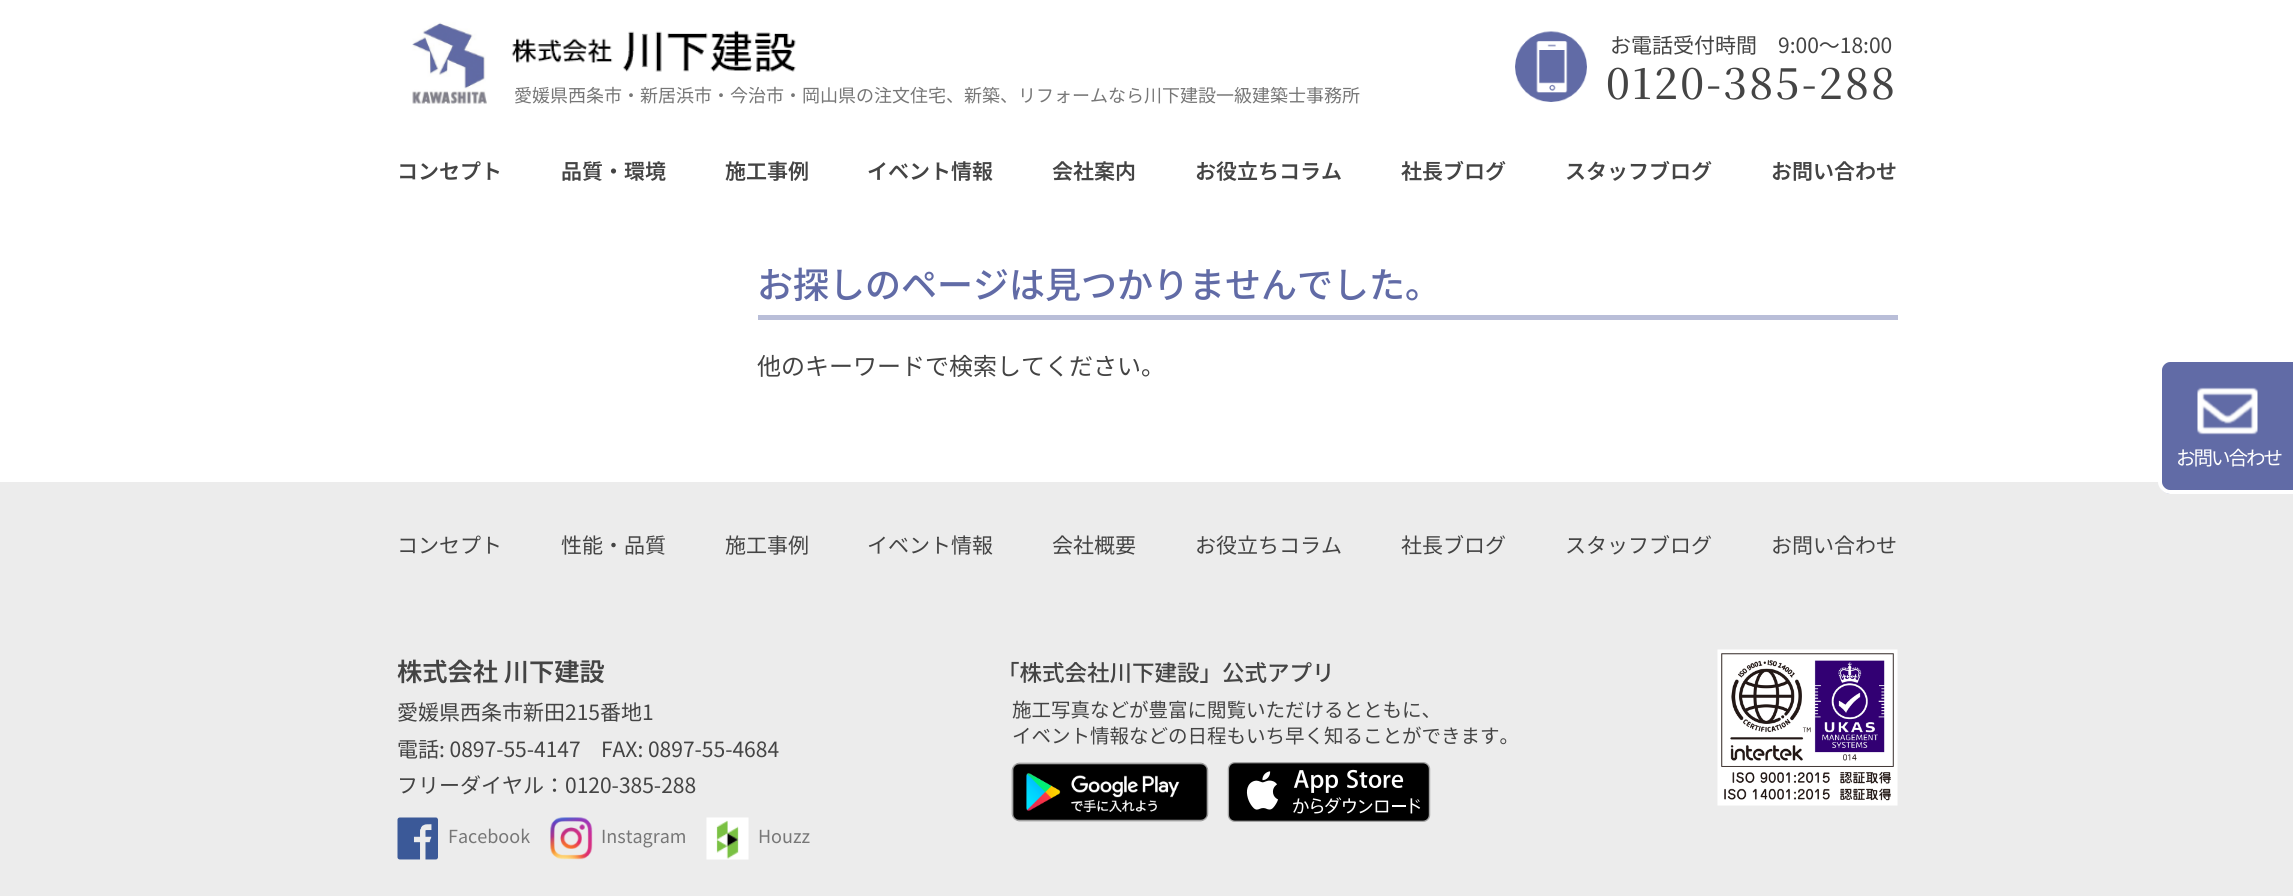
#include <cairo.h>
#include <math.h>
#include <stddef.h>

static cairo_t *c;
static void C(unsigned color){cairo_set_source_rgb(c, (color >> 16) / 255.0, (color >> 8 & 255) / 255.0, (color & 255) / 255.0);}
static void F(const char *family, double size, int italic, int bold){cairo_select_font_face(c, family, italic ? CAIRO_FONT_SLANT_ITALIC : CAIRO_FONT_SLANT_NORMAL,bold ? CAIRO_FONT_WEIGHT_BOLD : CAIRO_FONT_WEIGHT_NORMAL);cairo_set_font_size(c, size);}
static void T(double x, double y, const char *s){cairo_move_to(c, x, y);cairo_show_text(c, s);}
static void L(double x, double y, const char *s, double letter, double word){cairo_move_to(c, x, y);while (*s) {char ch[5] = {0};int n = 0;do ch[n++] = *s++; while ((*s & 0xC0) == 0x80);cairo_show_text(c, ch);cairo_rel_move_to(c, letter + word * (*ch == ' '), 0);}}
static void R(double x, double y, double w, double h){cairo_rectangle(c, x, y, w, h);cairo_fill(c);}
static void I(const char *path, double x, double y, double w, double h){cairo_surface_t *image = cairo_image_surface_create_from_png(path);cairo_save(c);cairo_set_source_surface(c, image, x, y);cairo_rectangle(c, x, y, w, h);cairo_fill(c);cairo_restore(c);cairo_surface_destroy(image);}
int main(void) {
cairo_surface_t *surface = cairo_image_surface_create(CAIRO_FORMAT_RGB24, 2293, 896);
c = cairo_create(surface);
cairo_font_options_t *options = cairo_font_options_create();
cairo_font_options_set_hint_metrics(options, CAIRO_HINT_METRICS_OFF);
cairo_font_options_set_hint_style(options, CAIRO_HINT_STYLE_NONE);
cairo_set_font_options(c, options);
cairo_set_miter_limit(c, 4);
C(0xffffff);
cairo_paint(c);
I("1.png",412,22,75,82);
I("2.png",511,30,285,42);
F("Noto Sans JP",18,0,0);
C(0x777777);
T(514,102,"愛媛県西条市・新居浜市・今治市・岡山県の注文住宅、新築、リフォームなら川下建設一級建築士事務所");
I("3.png",1515,31,72,71);
F("Noto Sans JP",21,0,0);
C(0x444444);
T(1610,53,"お電話受付時間");
T(1778,53,"9:00～18:00");
F("Noto Serif JP ExtraLight",42,0,0);
L(1606,99,"0120-385-288",2.25,0);
C(0xececec);
R(0,482,2293,414);
C(0x616ba6);
cairo_new_path(c);
cairo_move_to(c,2171,359);
cairo_line_to(c,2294,359);
cairo_line_to(c,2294,494);
cairo_line_to(c,2171,494);
cairo_curve_to(c,2164.5,494,2159,488.5,2159,482);
cairo_line_to(c,2159,371);
cairo_curve_to(c,2159,364.5,2164.5,359,2171,359);
cairo_close_path(c);
cairo_fill(c);
I("4.png",2197,387,61,48);
C(0xffffff);
cairo_set_fill_rule(c,CAIRO_FILL_RULE_EVEN_ODD);
cairo_new_path(c);
cairo_move_to(c,2170,358);
cairo_line_to(c,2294,358);
cairo_line_to(c,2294,494);
cairo_line_to(c,2170,494);
cairo_curve_to(c,2164,494,2158,488,2158,482);
cairo_line_to(c,2158,370);
cairo_curve_to(c,2158,364,2164,358,2170,358);
cairo_close_path(c);
cairo_move_to(c,2170,362);
cairo_line_to(c,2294,362);
cairo_line_to(c,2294,490);
cairo_line_to(c,2170,490);
cairo_curve_to(c,2166,490,2162,486,2162,482);
cairo_line_to(c,2162,370);
cairo_curve_to(c,2162,366,2166,362,2170,362);
cairo_close_path(c);
cairo_fill(c);
F("Noto Sans JP",19.5,0,0);
L(2176,465,"お問い合わせ",-2,0);
F("Noto Sans JP SemiBold",21,0,0);
C(0x444444);
T(397,179,"コンセプト");
T(561,179,"品質・環境");
T(725,179,"施工事例");
T(867,179,"イベント情報");
T(1052,179,"会社案内");
T(1195,179,"お役立ちコラム");
T(1401,179,"社長ブログ");
T(1565,179,"スタッフブログ");
T(1771,179,"お問い合わせ");
C(0xb9bed8);
R(758,315,1140,5);
F("Noto Sans JP Medium",36,0,0);
C(0x616ba6);
T(757,298,"お探しのページは見つかりませんでした。");
F("Noto Sans JP",24,0,0);
C(0x444444);
T(757,375,"他のキーワードで検索してください。");
F("Noto Sans JP",21,0,0);
T(397,553,"コンセプト");
T(561,553,"性能・品質");
T(725,553,"施工事例");
T(867,553,"イベント情報");
T(1052,553,"会社概要");
T(1195,553,"お役立ちコラム");
T(1401,553,"社長ブログ");
T(1565,553,"スタッフブログ");
T(1771,553,"お問い合わせ");
F("Noto Sans JP SemiBold",25.25,0,0);
T(397,681,"株式会社 川下建設");
F("Noto Sans JP",21,0,0);
T(397,720,"愛媛県西条市新田215番地1");
T(397,757,"電話: 0897-55-4147");
T(601,757,"FAX: 0897-55-4684");
T(397,793,"フリーダイヤル：0120-385-288");
I("5.png",397,817,41,43);
F("Noto Sans JP",18,0,0);
C(0x777777);
T(448,843,"Facebook");
I("6.png",550,817,43,43);
T(601,843,"Instagram");
I("7.png",706,817,43,43);
T(758,843,"Houzz");
F("Noto Sans JP Medium",22.5,0,0);
C(0x444444);
T(997,681,"「株式会社川下建設」公式アプリ");
F("Noto Sans JP",19.5,0,0);
T(1012,717,"施工写真などが豊富に閲覧いただけるとともに、");
T(1012,743,"イベント情報などの日程もいち早く知ることができます。");
I("8.png",1011,762,198,60);
I("9.png",1227,762,204,60);
I("10.png",1717,649,181,157);
cairo_surface_write_to_png(surface, "o.png");
cairo_font_options_destroy(options);
cairo_destroy(c);
cairo_surface_destroy(surface);
return 0;
}
